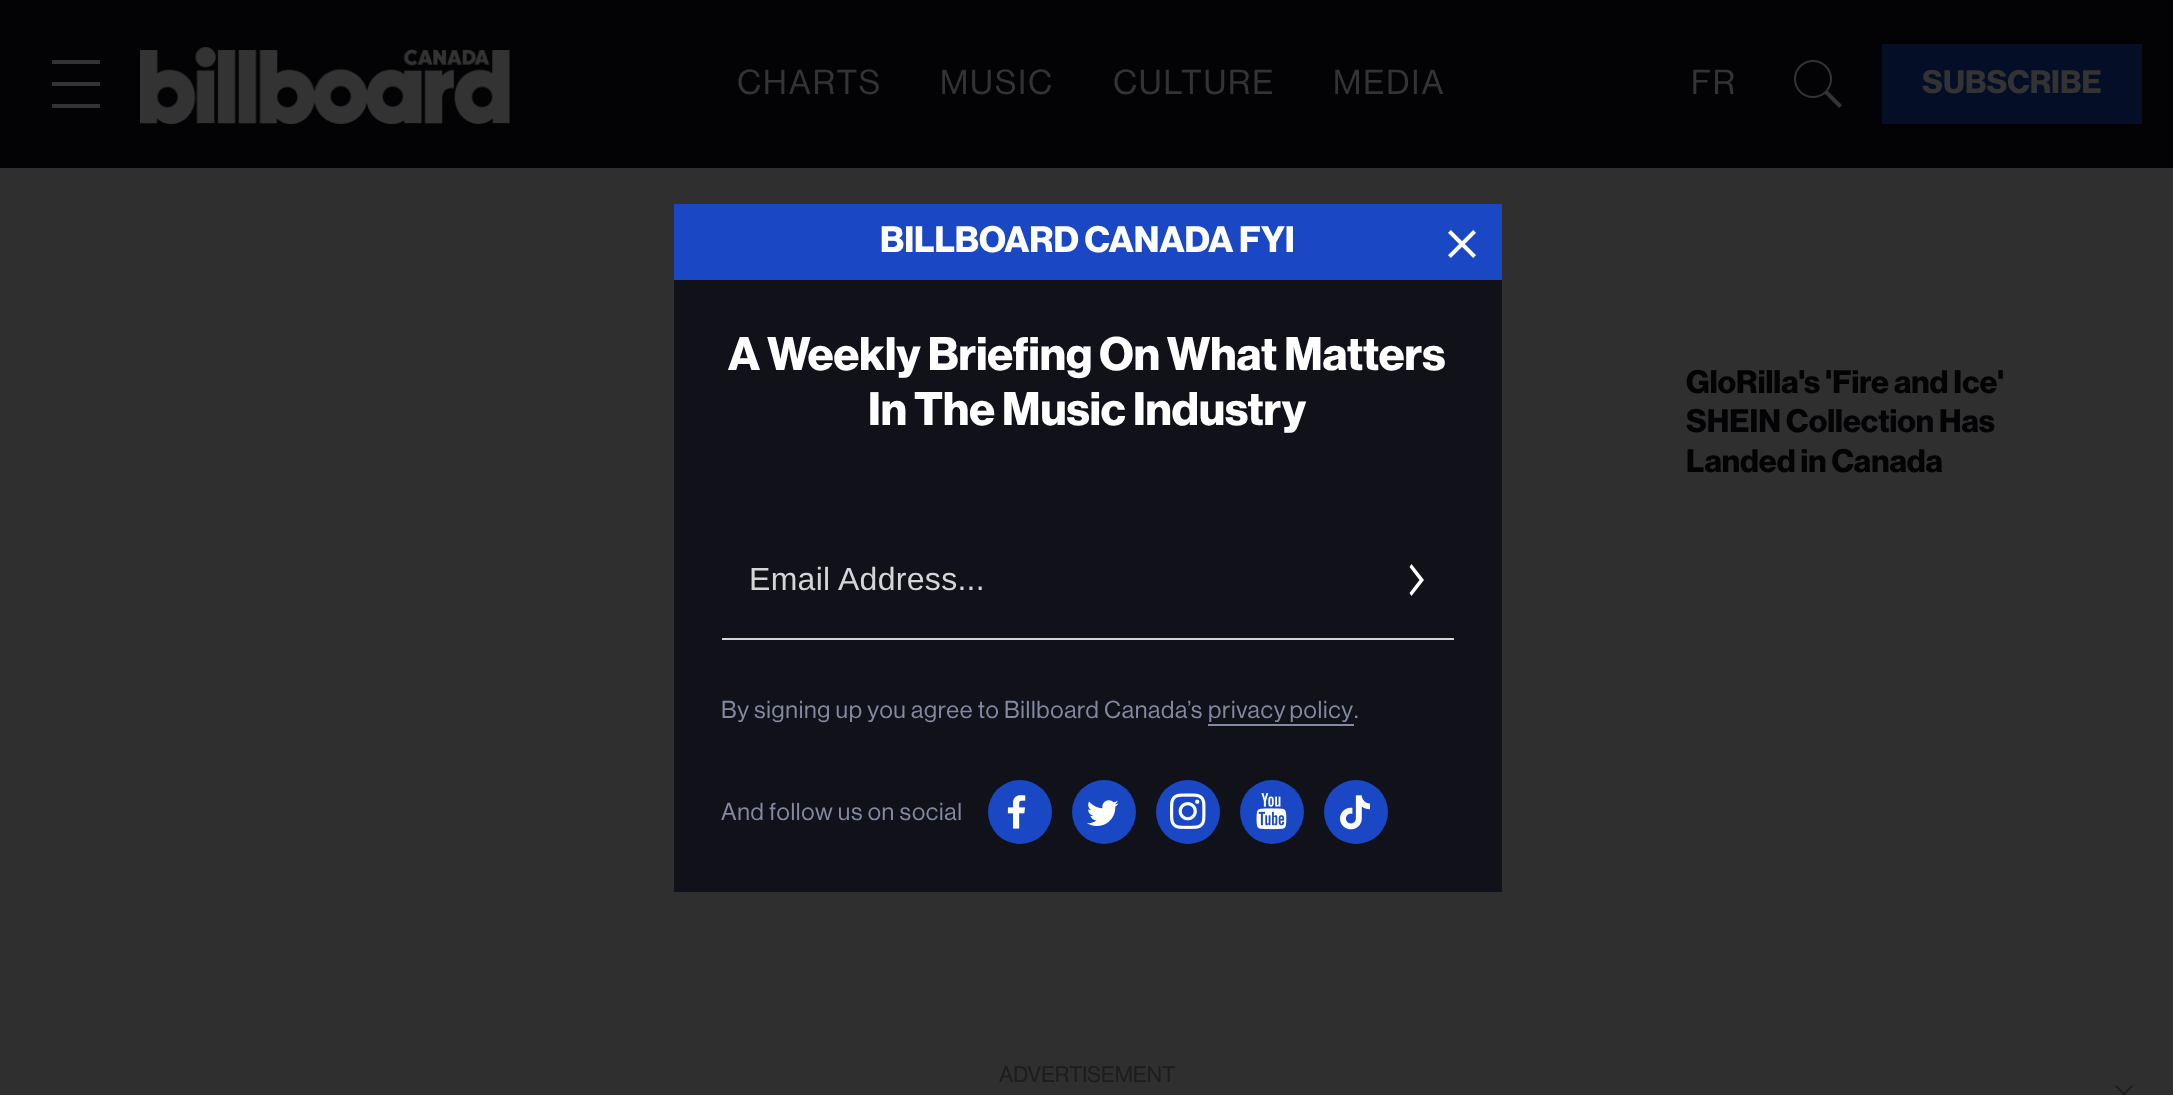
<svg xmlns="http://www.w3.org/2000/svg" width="2173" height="1095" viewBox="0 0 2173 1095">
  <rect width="100%" height="100%" fill="rgb(47,47,47)"/>
  <rect x="0" y="0" width="2173" height="168" fill="rgb(3,3,5)"/>
  <rect x="52" y="60" width="48" height="4" fill="rgb(51,51,51)"/>
  <rect x="52" y="82" width="48" height="4" fill="rgb(51,51,51)"/>
  <rect x="52" y="104" width="48" height="4" fill="rgb(51,51,51)"/>
  <image x="140" y="47" width="370" height="77" href="pic1.png"/>
  <g font-family="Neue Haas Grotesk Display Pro" font-size="34" letter-spacing="2" fill="rgb(51,51,51)">
    <text x="737" y="94">CHARTS</text>
    <text x="940" y="94">MUSIC</text>
    <text x="1113" y="94">CULTURE</text>
    <text x="1333" y="94">MEDIA</text>
    <text x="1691" y="94">FR</text>
  </g>
  <image x="1794" y="60" width="48" height="48" href="pic2.png"/>
  <rect x="1882" y="44" width="260" height="80" fill="rgb(5,14,39)"/>
  <text x="1922" y="93" font-family="Neue Haas Grotesk Display Pro" font-size="32" font-weight="bold" fill="rgb(51,51,51)">SUBSCRIBE</text>
  <rect x="674" y="280" width="828" height="612" fill="rgb(16,17,25)"/>
  <rect x="674" y="204" width="828" height="76" fill="rgb(26,72,196)"/>
  <text x="880" y="252" font-family="Neue Haas Grotesk Display Pro" font-size="36" font-weight="bold" fill="rgb(255,255,255)">BILLBOARD CANADA FYI</text>
  <image x="1448" y="230" width="28" height="28" href="pic3.png"/>
  <g font-family="Neue Haas Grotesk Display Pro" font-size="46" font-weight="bold" fill="rgb(255,255,255)">
    <text x="728" y="370">A Weekly Briefing On What Matters</text>
    <text x="868" y="425">In The Music Industry</text>
  </g>
  <rect x="722" y="638" width="732" height="2" fill="rgb(213,213,213)"/>
  <text x="749" y="590" font-family="Liberation Sans" font-size="32" letter-spacing="0.3" fill="rgb(213,213,213)">Email Address...</text>
  <path d="M1411.5 564L1409.5 567L1419.5 580L1409.5 593L1411.5 596L1424 580Z" fill="rgb(255,255,255)"/>
  <g font-family="Neue Haas Grotesk Display Pro" font-size="24" letter-spacing="0.7" fill="rgb(130,137,161)">
    <text x="721" y="718">By signing up you agree to Billboard Canada’s</text>
    <text x="1208" y="718" word-spacing="-1">privacy policy</text>
  </g>
  <rect x="1208" y="724" width="146" height="2" fill="rgb(130,137,161)"/>
  <g font-family="Neue Haas Grotesk Display Pro" font-size="24" letter-spacing="0.7" fill="rgb(130,137,161)">
    <text x="1354" y="718">.</text>
    <text x="721" y="820">And follow us on social</text>
  </g>
  <circle cx="1020" cy="812" r="32" fill="rgb(26,72,196)"/>
  <image x="1007" y="795" width="19" height="34" href="pic4.png"/>
  <circle cx="1104" cy="812" r="32" fill="rgb(26,72,196)"/>
  <image x="1087" y="800" width="32" height="26" href="pic5.png"/>
  <circle cx="1188" cy="812" r="32" fill="rgb(26,72,196)"/>
  <image x="1170" y="793" width="36" height="36" href="pic6.png"/>
  <circle cx="1272" cy="812" r="32" fill="rgb(26,72,196)"/>
  <image x="1256" y="793" width="31" height="37" href="pic7.png"/>
  <circle cx="1356" cy="812" r="32" fill="rgb(26,72,196)"/>
  <image x="1340" y="795" width="30" height="35" href="pic8.png"/>
  <g font-family="Neue Haas Grotesk Display Pro" font-size="32" font-weight="bold" fill="rgb(3,3,5)">
    <text>
      <tspan x="1686" y="393">GloRilla's 'Fire and Ice'</tspan>
      <tspan x="1686" y="432">SHEIN Collection Has</tspan>
      <tspan x="1686" y="472">Landed in Canada</tspan>
    </text>
  </g>
  <text x="999" y="1082" font-family="Neue Haas Grotesk Display Pro" font-size="22" fill="rgb(28,28,28)">ADVERTISEMENT</text>
  <path d="M2132.5 1085.5L2115.5 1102.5M2115.5 1085.5L2132.5 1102.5" fill="none" stroke="rgb(28,28,28)" stroke-width="1.7"/>
</svg>
